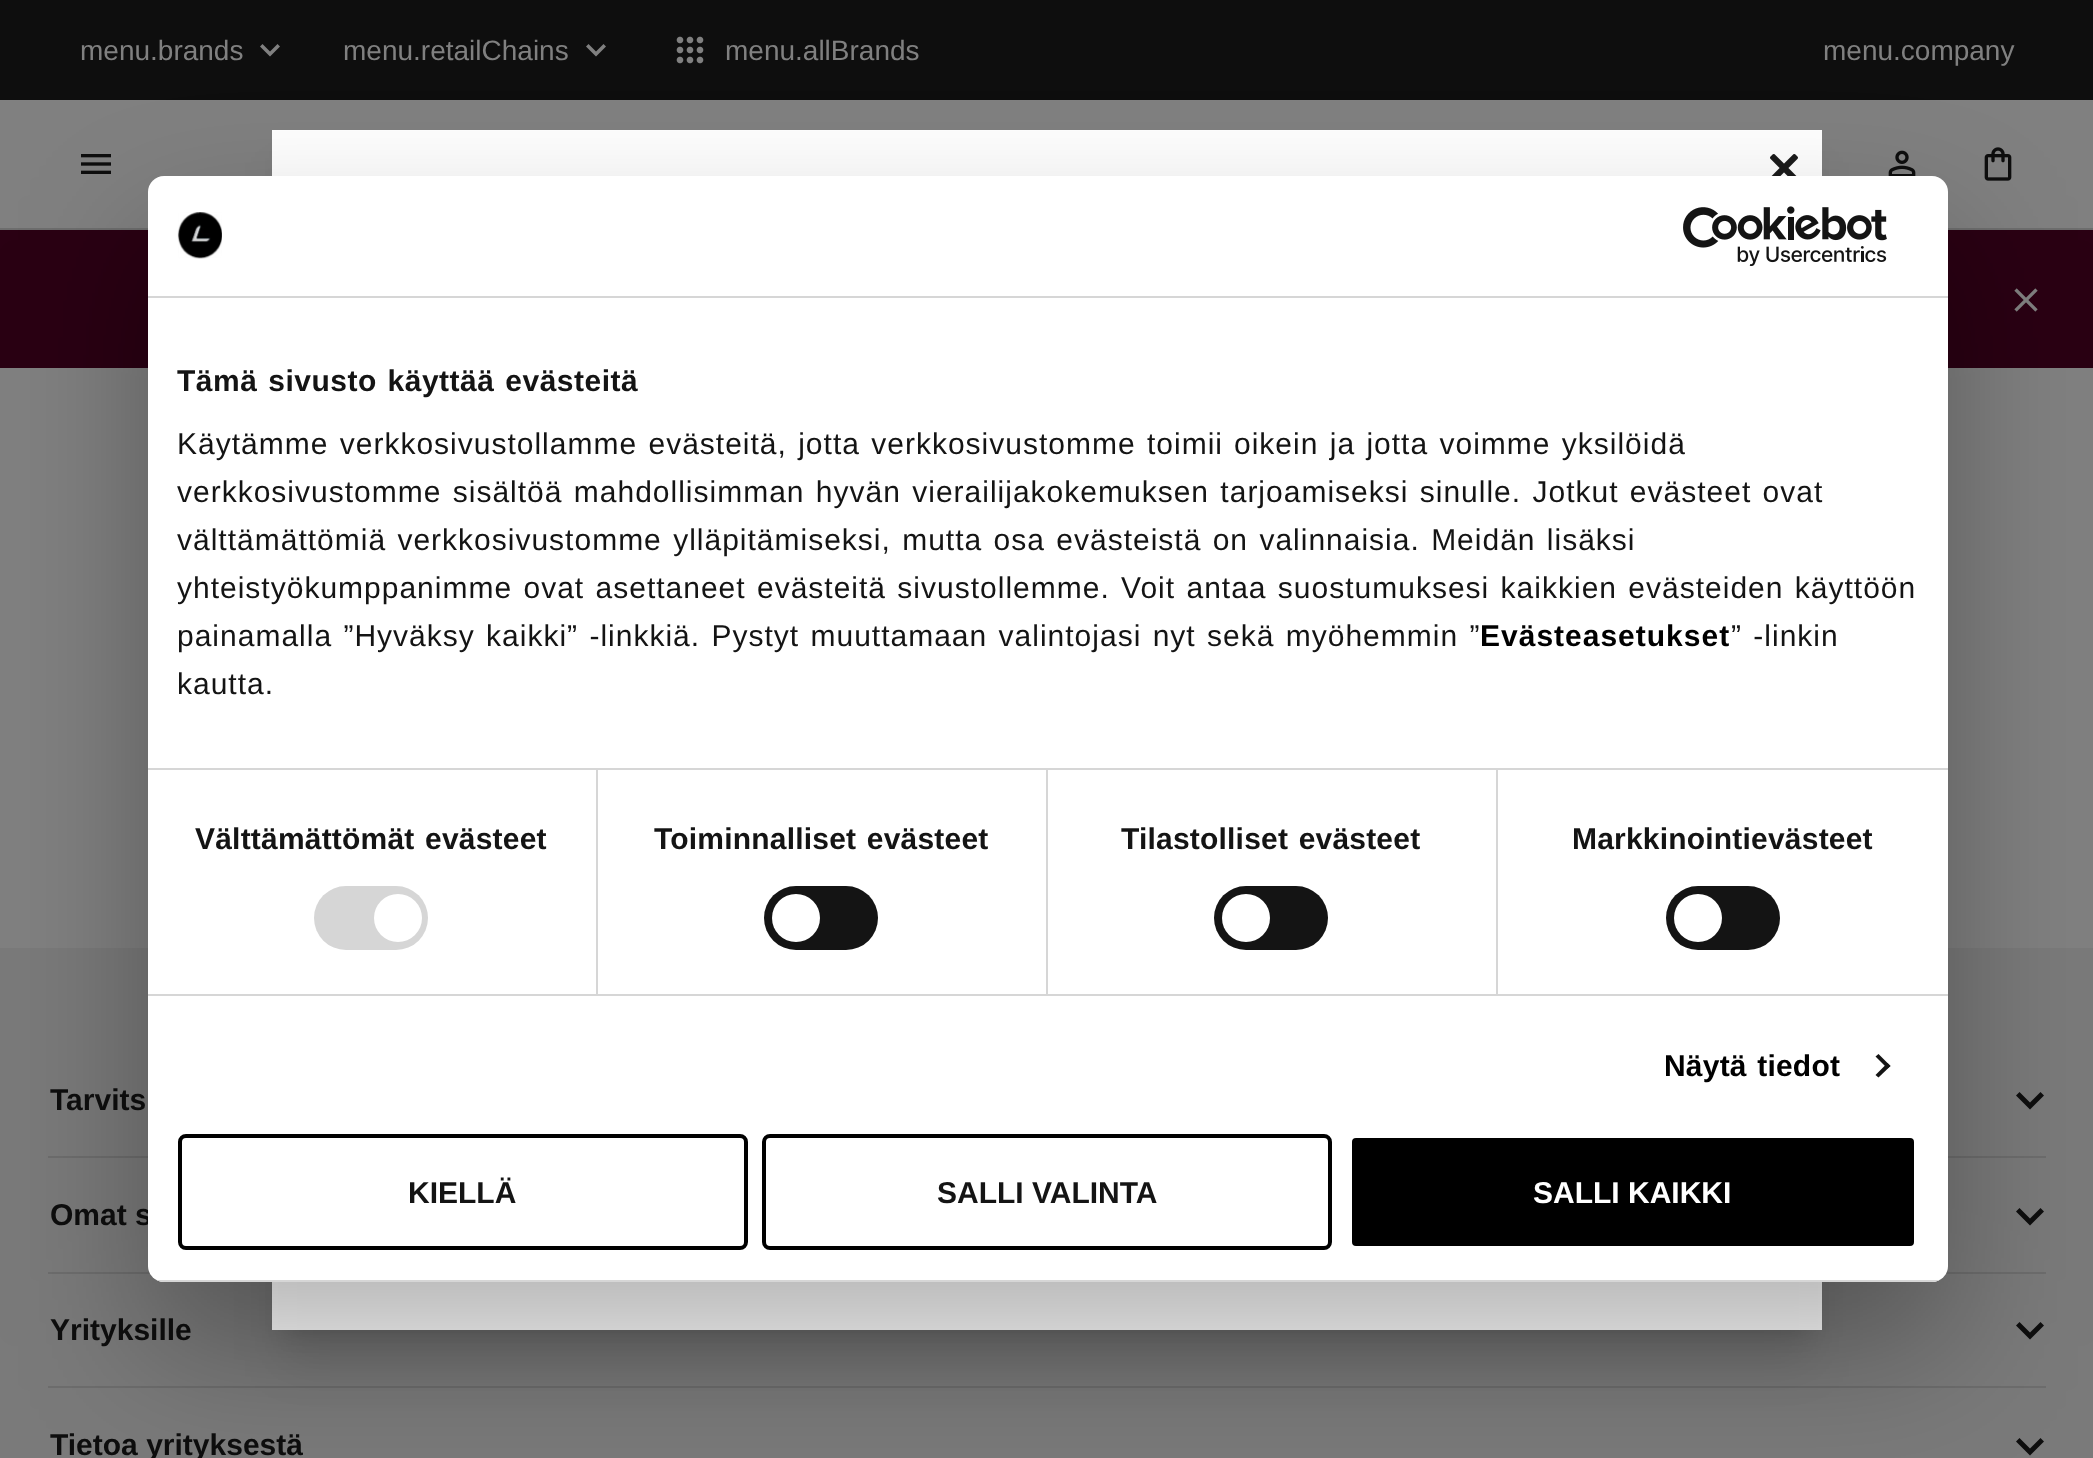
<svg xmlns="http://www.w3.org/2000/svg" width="2093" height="1458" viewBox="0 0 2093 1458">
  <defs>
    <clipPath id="clip1"><rect x="148" y="176" width="1800" height="1106" rx="16"/></clipPath>
  </defs>
  <rect width="100%" height="100%" fill="rgb(128,128,128)"/>
  <rect x="0" y="0" width="2093" height="100" fill="rgb(14,14,14)"/>
  <text x="80" y="60" font-family="Liberation Sans" font-size="28" fill="rgb(128,128,128)">menu.brands</text>
  <path d="M277.5 44L270 51.5L262.5 44L260 46.5L270 56.5L280 46.5Z" fill="rgb(128,128,128)"/>
  <text x="343" y="60" font-family="Liberation Sans" font-size="28" fill="rgb(128,128,128)">menu.retailChains</text>
  <path d="M603.5 44L596 51.5L588.5 44L586 46.5L596 56.5L606 46.5Z" fill="rgb(128,128,128)"/>
  <image x="676" y="36" width="28" height="28" href="pic1.png"/>
  <g font-family="Liberation Sans" font-size="28" fill="rgb(128,128,128)">
    <text x="725" y="60">menu.allBrands</text>
    <text x="1823" y="60">menu.company</text>
  </g>
  <rect x="0" y="228" width="2093" height="2" fill="rgb(109,109,109)"/>
  <image x="81" y="154" width="30" height="20" href="pic2.png"/>
  <image x="1888" y="150" width="28" height="26" href="pic3.png"/>
  <image x="1984" y="147" width="28" height="34" href="pic4.png"/>
  <rect x="0" y="230" width="2093" height="138" fill="rgb(42,0,19)"/>
  <image x="2014" y="288" width="24" height="24" href="pic5.png"/>
  <rect x="0" y="948" width="2093" height="510" fill="rgb(122,122,122)"/>
  <rect x="48" y="1156" width="1998" height="2" fill="rgb(109,109,109)"/>
  <text x="50" y="1110" font-family="Liberation Sans" font-size="30" font-weight="bold" fill="rgb(14,14,14)">Tarvits</text>
  <path d="M2040.5 1092L2030 1102.5L2019.5 1092L2016 1095.5L2030 1109.5L2044 1095.5Z" fill="rgb(14,14,14)"/>
  <rect x="48" y="1272" width="1998" height="2" fill="rgb(109,109,109)"/>
  <text x="50" y="1225" font-family="Liberation Sans" font-size="30" font-weight="bold" fill="rgb(14,14,14)">Omat s</text>
  <path d="M2040.5 1208L2030 1218.5L2019.5 1208L2016 1211.5L2030 1225.5L2044 1211.5Z" fill="rgb(14,14,14)"/>
  <rect x="48" y="1386" width="1998" height="2" fill="rgb(109,109,109)"/>
  <text x="50" y="1340" font-family="Liberation Sans" font-size="30" font-weight="bold" fill="rgb(14,14,14)">Yrityksille</text>
  <path d="M2040.5 1322L2030 1332.5L2019.5 1322L2016 1325.5L2030 1339.5L2044 1325.5Z" fill="rgb(14,14,14)"/>
  <text x="50" y="1455" font-family="Liberation Sans" font-size="30" font-weight="bold" fill="rgb(14,14,14)">Tietoa yrityksestä</text>
  <path d="M2040.5 1438L2030 1448.5L2019.5 1438L2016 1441.5L2030 1455.5L2044 1441.5Z" fill="rgb(14,14,14)"/>
  <rect x="284" y="158" width="1526" height="1176" fill="rgba(0,0,0,0.1)" filter="blur(10px)"/>
  <rect x="282" y="180" width="1530" height="1180" fill="rgba(0,0,0,0.1)" filter="blur(25px)"/>
  <rect x="272" y="130" width="1550" height="1200" fill="rgb(255,255,255)"/>
  <image x="1770" y="154" width="28" height="22" href="pic6.png"/>
  <rect x="148" y="240" width="1800" height="1106" rx="16" fill="rgba(0,0,0,0.3)" filter="blur(68px)"/>
  <rect x="148" y="176" width="1800" height="1106" rx="16" fill="rgb(255,255,255)"/>
  <rect x="148" y="296" width="1800" height="2" fill="rgb(214,214,214)"/>
  <image x="177" y="212" width="45" height="47" href="pic7.png"/>
  <image x="1683" y="206" width="204" height="60" href="pic8.png"/>
  <rect x="148" y="768" width="1800" height="2" fill="rgb(214,214,214)"/>
  <text x="177" y="391" word-spacing="2" font-family="Liberation Sans" font-size="30" font-weight="bold" letter-spacing="0.5" fill="rgb(20,20,20)">Tämä sivusto käyttää evästeitä</text>
  <g font-family="Liberation Sans" font-size="30" letter-spacing="1" fill="rgb(20,20,20)">
    <text x="177" y="454" word-spacing="2">Käytämme verkkosivustollamme evästeitä, jotta verkkosivustomme toimii</text>
    <text x="1234" y="454" word-spacing="2">oikein ja jotta voimme yksilöidä</text>
    <text>
      <tspan x="177" y="502" word-spacing="2">verkkosivustomme sisältöä mahdollisimman hyvän vierailijakokemuksen tarjoamiseksi sinulle. Jotkut evästeet ovat</tspan>
      <tspan x="177" y="550" word-spacing="2">välttämättömiä verkkosivustomme ylläpitämiseksi, mutta osa evästeistä on valinnaisia. Meidän lisäksi</tspan>
      <tspan x="177" y="598" word-spacing="2">yhteistyökumppanimme ovat asettaneet evästeitä sivustollemme. Voit antaa suostumuksesi kaikkien evästeiden käyttöön</tspan>
      <tspan x="177" y="646" word-spacing="2">painamalla ”Hyväksy kaikki” -linkkiä. Pystyt muuttamaan valintojasi nyt sekä myöhemmin ”</tspan>
    </text>
  </g>
  <text x="1480" y="646" font-family="Liberation Sans" font-size="30" font-weight="bold" letter-spacing="1" fill="rgb(0,0,0)">Evästeasetukset</text>
  <g font-family="Liberation Sans" font-size="30" letter-spacing="1" fill="rgb(20,20,20)">
    <text x="1731" y="646" word-spacing="2">” -linkin</text>
    <text x="177" y="694">kautta.</text>
  </g>
  <rect x="148" y="994" width="1800" height="2" fill="rgb(214,214,214)"/>
  <rect x="596" y="770" width="2" height="224" fill="rgb(214,214,214)"/>
  <text x="195" y="849" word-spacing="2" font-family="Liberation Sans" font-size="30" font-weight="bold" letter-spacing="0.2" fill="rgb(20,20,20)">Välttämättömät evästeet</text>
  <rect x="314" y="886" width="114" height="64" rx="32" fill="rgb(214,214,214)"/>
  <circle cx="398" cy="918" r="24" fill="rgb(255,255,255)"/>
  <rect x="1046" y="770" width="2" height="224" fill="rgb(214,214,214)"/>
  <text x="654" y="849" word-spacing="2" font-family="Liberation Sans" font-size="30" font-weight="bold" letter-spacing="0.2" fill="rgb(20,20,20)">Toiminnalliset evästeet</text>
  <rect x="764" y="886" width="114" height="64" rx="32" fill="rgb(20,20,20)"/>
  <circle cx="796" cy="918" r="24" fill="rgb(255,255,255)"/>
  <rect x="1496" y="770" width="2" height="224" fill="rgb(214,214,214)"/>
  <text x="1121" y="849" word-spacing="2" font-family="Liberation Sans" font-size="30" font-weight="bold" letter-spacing="0.2" fill="rgb(20,20,20)">Tilastolliset evästeet</text>
  <rect x="1214" y="886" width="114" height="64" rx="32" fill="rgb(20,20,20)"/>
  <circle cx="1246" cy="918" r="24" fill="rgb(255,255,255)"/>
  <text x="1572" y="849" font-family="Liberation Sans" font-size="30" font-weight="bold" letter-spacing="0.2" fill="rgb(20,20,20)">Markkinointievästeet</text>
  <rect x="1666" y="886" width="114" height="64" rx="32" fill="rgb(20,20,20)"/>
  <circle cx="1698" cy="918" r="24" fill="rgb(255,255,255)"/>
  <text x="1664" y="1076" word-spacing="2" font-family="Liberation Sans" font-size="30" font-weight="bold" letter-spacing="0.2" fill="rgb(0,0,0)">Näytä tiedot</text>
  <path d="M1878.5 1054L1890.5 1066L1887.5 1068.5L1875.5 1056.5Z" fill="rgb(20,20,20)"/>
  <path d="M1887.5 1063L1890.5 1066L1878.5 1077.5L1875.5 1075Z" fill="rgb(20,20,20)"/>
  <g clip-path="url(#clip1)">
    <rect x="148" y="1280" width="1800" height="2" fill="rgb(214,214,214)"/>
  </g>
  <rect x="180" y="1136" width="566" height="112" rx="6" fill="none" stroke="rgb(0,0,0)" stroke-width="4"/>
  <text x="408" y="1203" font-family="Liberation Sans" font-size="30" font-weight="bold" fill="rgb(20,20,20)">KIELLÄ</text>
  <rect x="764" y="1136" width="566" height="112" rx="6" fill="none" stroke="rgb(0,0,0)" stroke-width="4"/>
  <text x="937" y="1203" font-family="Liberation Sans" font-size="30" font-weight="bold" fill="rgb(20,20,20)">SALLI VALINTA</text>
  <rect x="1350" y="1136" width="566" height="112" rx="6" fill="rgb(0,0,0)" stroke="rgb(255,255,255)" stroke-width="4"/>
  <text x="1533" y="1203" font-family="Liberation Sans" font-size="30" font-weight="bold" fill="rgb(255,255,255)">SALLI KAIKKI</text>
</svg>
